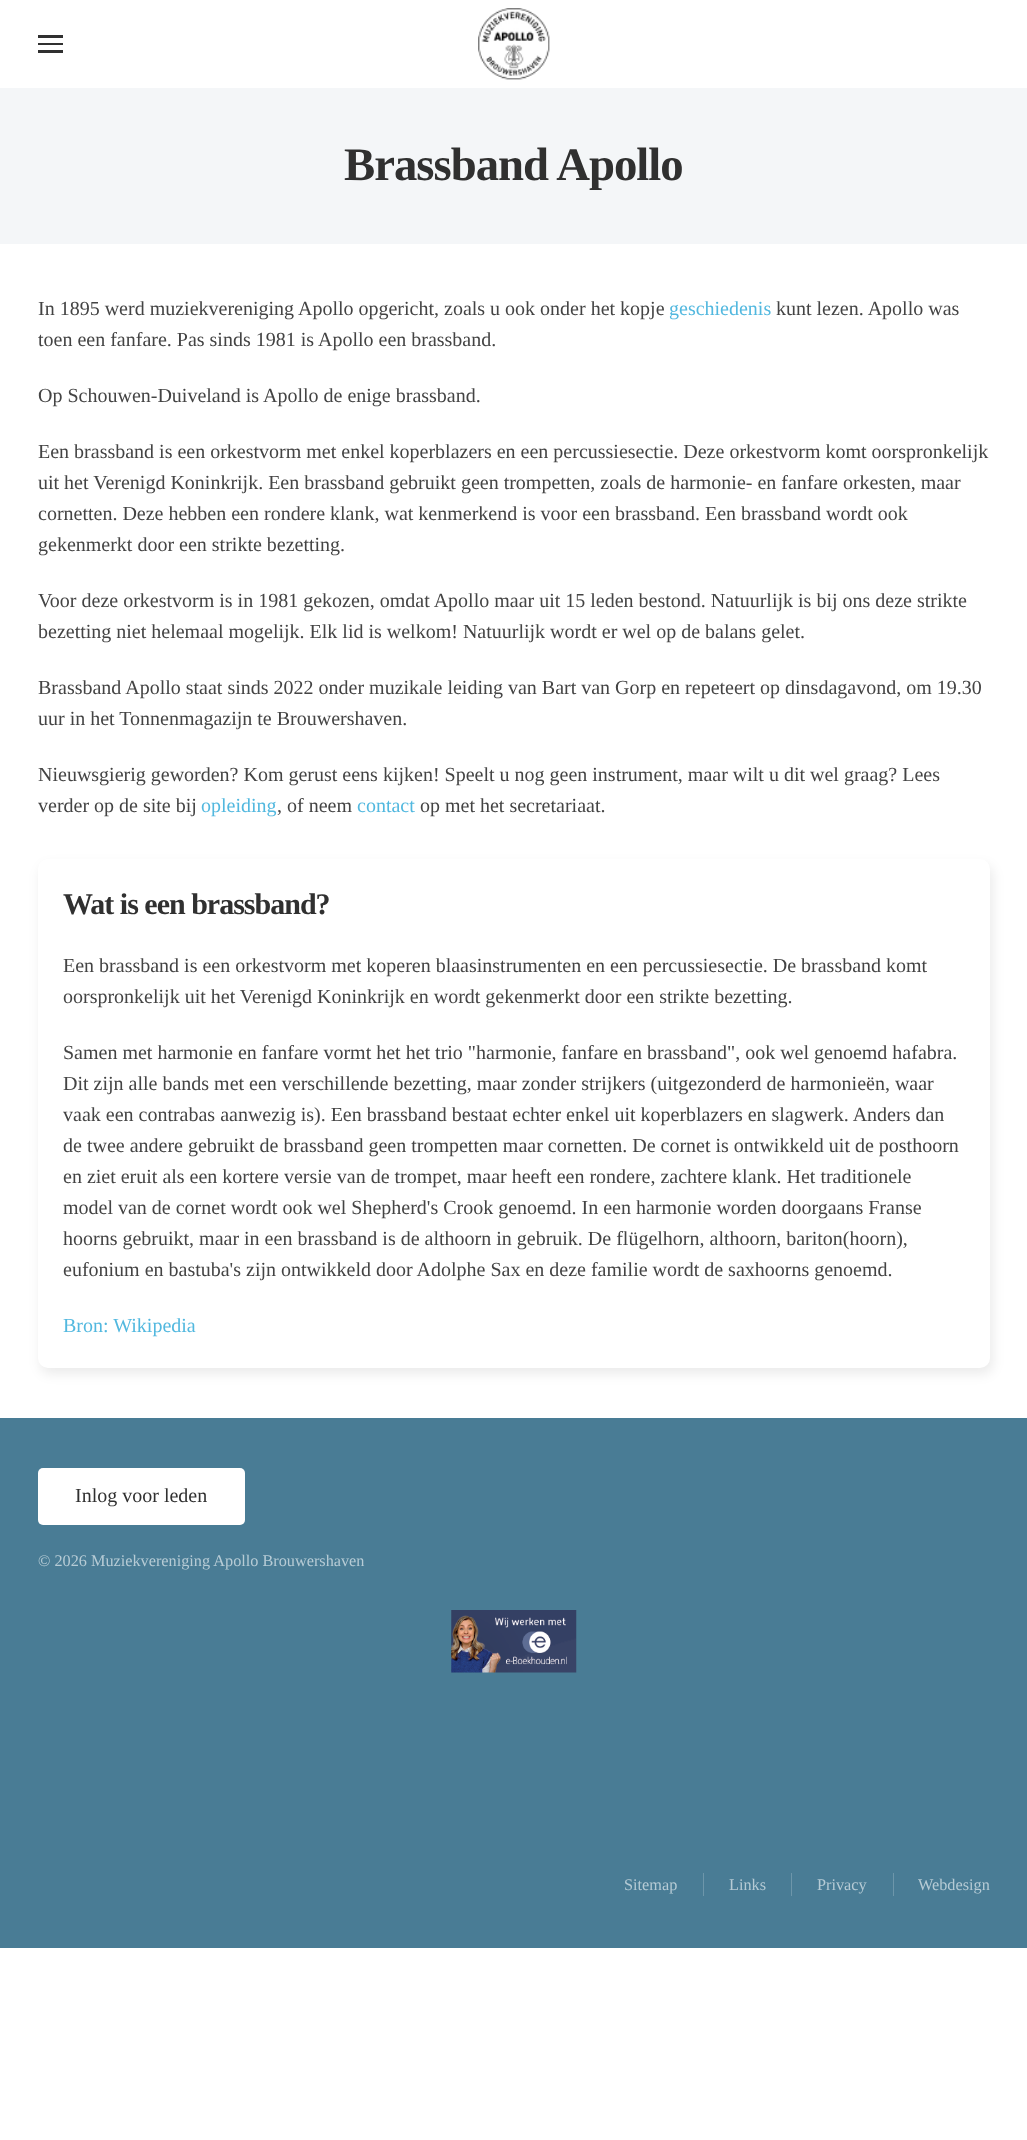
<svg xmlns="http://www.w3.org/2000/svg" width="1027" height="2140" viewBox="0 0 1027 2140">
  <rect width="100%" height="100%" fill="rgb(255,255,255)"/>
  <rect x="38" y="35" width="25" height="3" fill="rgb(48,48,48)"/>
  <rect x="38" y="43" width="25" height="2" fill="rgb(48,48,48)"/>
  <rect x="38" y="50" width="25" height="3" fill="rgb(48,48,48)"/>
  <image x="478" y="8" width="72" height="72" href="pic1.png"/>
  <rect x="0" y="88" width="1027" height="156" fill="rgb(244,246,248)"/>
  <text x="344" y="180" font-family="Liberation Serif" font-size="46.75" font-weight="bold" letter-spacing="-1" fill="rgb(48,48,48)">Brassband Apollo</text>
  <text x="38" y="315" font-family="Liberation Serif" font-size="20" fill="rgb(68,68,68)">In 1895 werd muziekvereniging Apollo opgericht, zoals u ook onder het kopje</text>
  <text x="669" y="315" font-family="Liberation Serif" font-size="20" fill="rgb(82,184,223)">geschiedenis</text>
  <g font-family="Liberation Serif" font-size="20" fill="rgb(68,68,68)">
    <text x="776" y="315">kunt lezen. Apollo was</text>
    <text x="38" y="346">toen een fanfare. Pas sinds 1981 is Apollo een brassband.</text>
    <text x="38" y="402">Op Schouwen-Duiveland is Apollo de enige brassband.</text>
    <text>
      <tspan x="38" y="458">Een brassband is een orkestvorm met enkel koperblazers en een percussiesectie. Deze orkestvorm komt oorspronkelijk</tspan>
      <tspan x="38" y="489">uit het Verenigd Koninkrijk. Een brassband gebruikt geen trompetten, zoals de harmonie- en fanfare orkesten, maar</tspan>
      <tspan x="38" y="520">cornetten. Deze hebben een rondere klank, wat kenmerkend is voor een brassband. Een brassband wordt ook</tspan>
      <tspan x="38" y="551">gekenmerkt door een strikte bezetting.</tspan>
    </text>
    <text>
      <tspan x="38" y="607">Voor deze orkestvorm is in 1981 gekozen, omdat Apollo maar uit 15 leden bestond. Natuurlijk is bij ons deze strikte</tspan>
      <tspan x="38" y="638">bezetting niet helemaal mogelijk. Elk lid is welkom! Natuurlijk wordt er wel op de balans gelet.</tspan>
    </text>
    <text>
      <tspan x="38" y="694">Brassband Apollo staat sinds 2022 onder muzikale leiding van Bart van Gorp en repeteert op dinsdagavond, om 19.30</tspan>
      <tspan x="38" y="725">uur in het Tonnenmagazijn te Brouwershaven.</tspan>
    </text>
    <text>
      <tspan x="38" y="781">Nieuwsgierig geworden? Kom gerust eens kijken! Speelt u nog geen instrument, maar wilt u dit wel graag? Lees</tspan>
      <tspan x="38" y="812">verder op de site bij</tspan>
    </text>
  </g>
  <text x="201" y="812" font-family="Liberation Serif" font-size="20" fill="rgb(82,184,223)">opleiding</text>
  <text x="277" y="812" font-family="Liberation Serif" font-size="20" fill="rgb(68,68,68)">, of neem</text>
  <text x="357" y="812" font-family="Liberation Serif" font-size="20" fill="rgb(82,184,223)">contact</text>
  <text x="420" y="812" font-family="Liberation Serif" font-size="20" fill="rgb(68,68,68)">op met het secretariaat.</text>
  <rect x="40" y="865" width="953" height="509" rx="10" fill="rgba(0,0,0,0.08)" filter="blur(6px)"/>
  <rect x="38" y="859" width="952" height="509" rx="10" fill="rgb(255,255,255)"/>
  <text x="63" y="914" font-family="Liberation Serif" font-size="30" font-weight="bold" letter-spacing="-1" fill="rgb(48,48,48)">Wat is een brassband?</text>
  <g font-family="Liberation Serif" font-size="20" fill="rgb(68,68,68)">
    <text>
      <tspan x="63" y="972">Een brassband is een orkestvorm met koperen blaasinstrumenten en een percussiesectie. De brassband komt</tspan>
      <tspan x="63" y="1003">oorspronkelijk uit het Verenigd Koninkrijk en wordt gekenmerkt door een strikte bezetting.</tspan>
    </text>
    <text>
      <tspan x="63" y="1059">Samen met harmonie en fanfare vormt het het trio "harmonie, fanfare en brassband", ook wel genoemd hafabra.</tspan>
      <tspan x="63" y="1090">Dit zijn alle bands met een verschillende bezetting, maar zonder strijkers (uitgezonderd de harmonieën, waar</tspan>
      <tspan x="63" y="1121">vaak een contrabas aanwezig is). Een brassband bestaat echter enkel uit koperblazers en slagwerk. Anders dan</tspan>
      <tspan x="63" y="1152">de twee andere gebruikt de brassband geen trompetten maar cornetten. De cornet is ontwikkeld uit de posthoorn</tspan>
      <tspan x="63" y="1183">en ziet eruit als een kortere versie van de trompet, maar heeft een rondere, zachtere klank. Het traditionele</tspan>
      <tspan x="63" y="1214">model van de cornet wordt ook wel Shepherd's Crook genoemd. In een harmonie worden doorgaans Franse</tspan>
      <tspan x="63" y="1245">hoorns gebruikt, maar in een brassband is de althoorn in gebruik. De flügelhorn, althoorn, bariton(hoorn),</tspan>
      <tspan x="63" y="1276">eufonium en bastuba's zijn ontwikkeld door Adolphe Sax en deze familie wordt de saxhoorns genoemd.</tspan>
    </text>
  </g>
  <text x="63" y="1332" font-family="Liberation Serif" font-size="20" fill="rgb(82,184,223)">Bron: Wikipedia</text>
  <rect x="0" y="1418" width="1027" height="530" fill="rgb(73,124,149)"/>
  <rect x="38" y="1468" width="207" height="57" rx="5" fill="rgb(255,255,255)"/>
  <text x="75" y="1502" font-family="Liberation Serif" font-size="20" fill="rgb(48,48,48)">Inlog voor leden</text>
  <text x="38" y="1566" font-family="Liberation Serif" font-size="16.25" fill="rgb(182,203,213)">© 2026 Muziekvereniging Apollo Brouwershaven</text>
  <image x="451" y="1610" width="126" height="63" href="pic2.png"/>
  <text x="624" y="1890" font-family="Liberation Serif" font-size="16.25" fill="rgb(182,203,213)">Sitemap</text>
  <rect x="703" y="1873" width="1" height="23" fill="rgb(109,150,170)"/>
  <text x="729" y="1890" font-family="Liberation Serif" font-size="16.25" fill="rgb(182,203,213)">Links</text>
  <rect x="791" y="1873" width="1" height="23" fill="rgb(109,150,170)"/>
  <text x="817" y="1890" font-family="Liberation Serif" font-size="16.25" fill="rgb(182,203,213)">Privacy</text>
  <rect x="893" y="1873" width="1" height="23" fill="rgb(109,150,170)"/>
  <text x="918" y="1890" font-family="Liberation Serif" font-size="16.25" fill="rgb(182,203,213)">Webdesign</text>
</svg>
